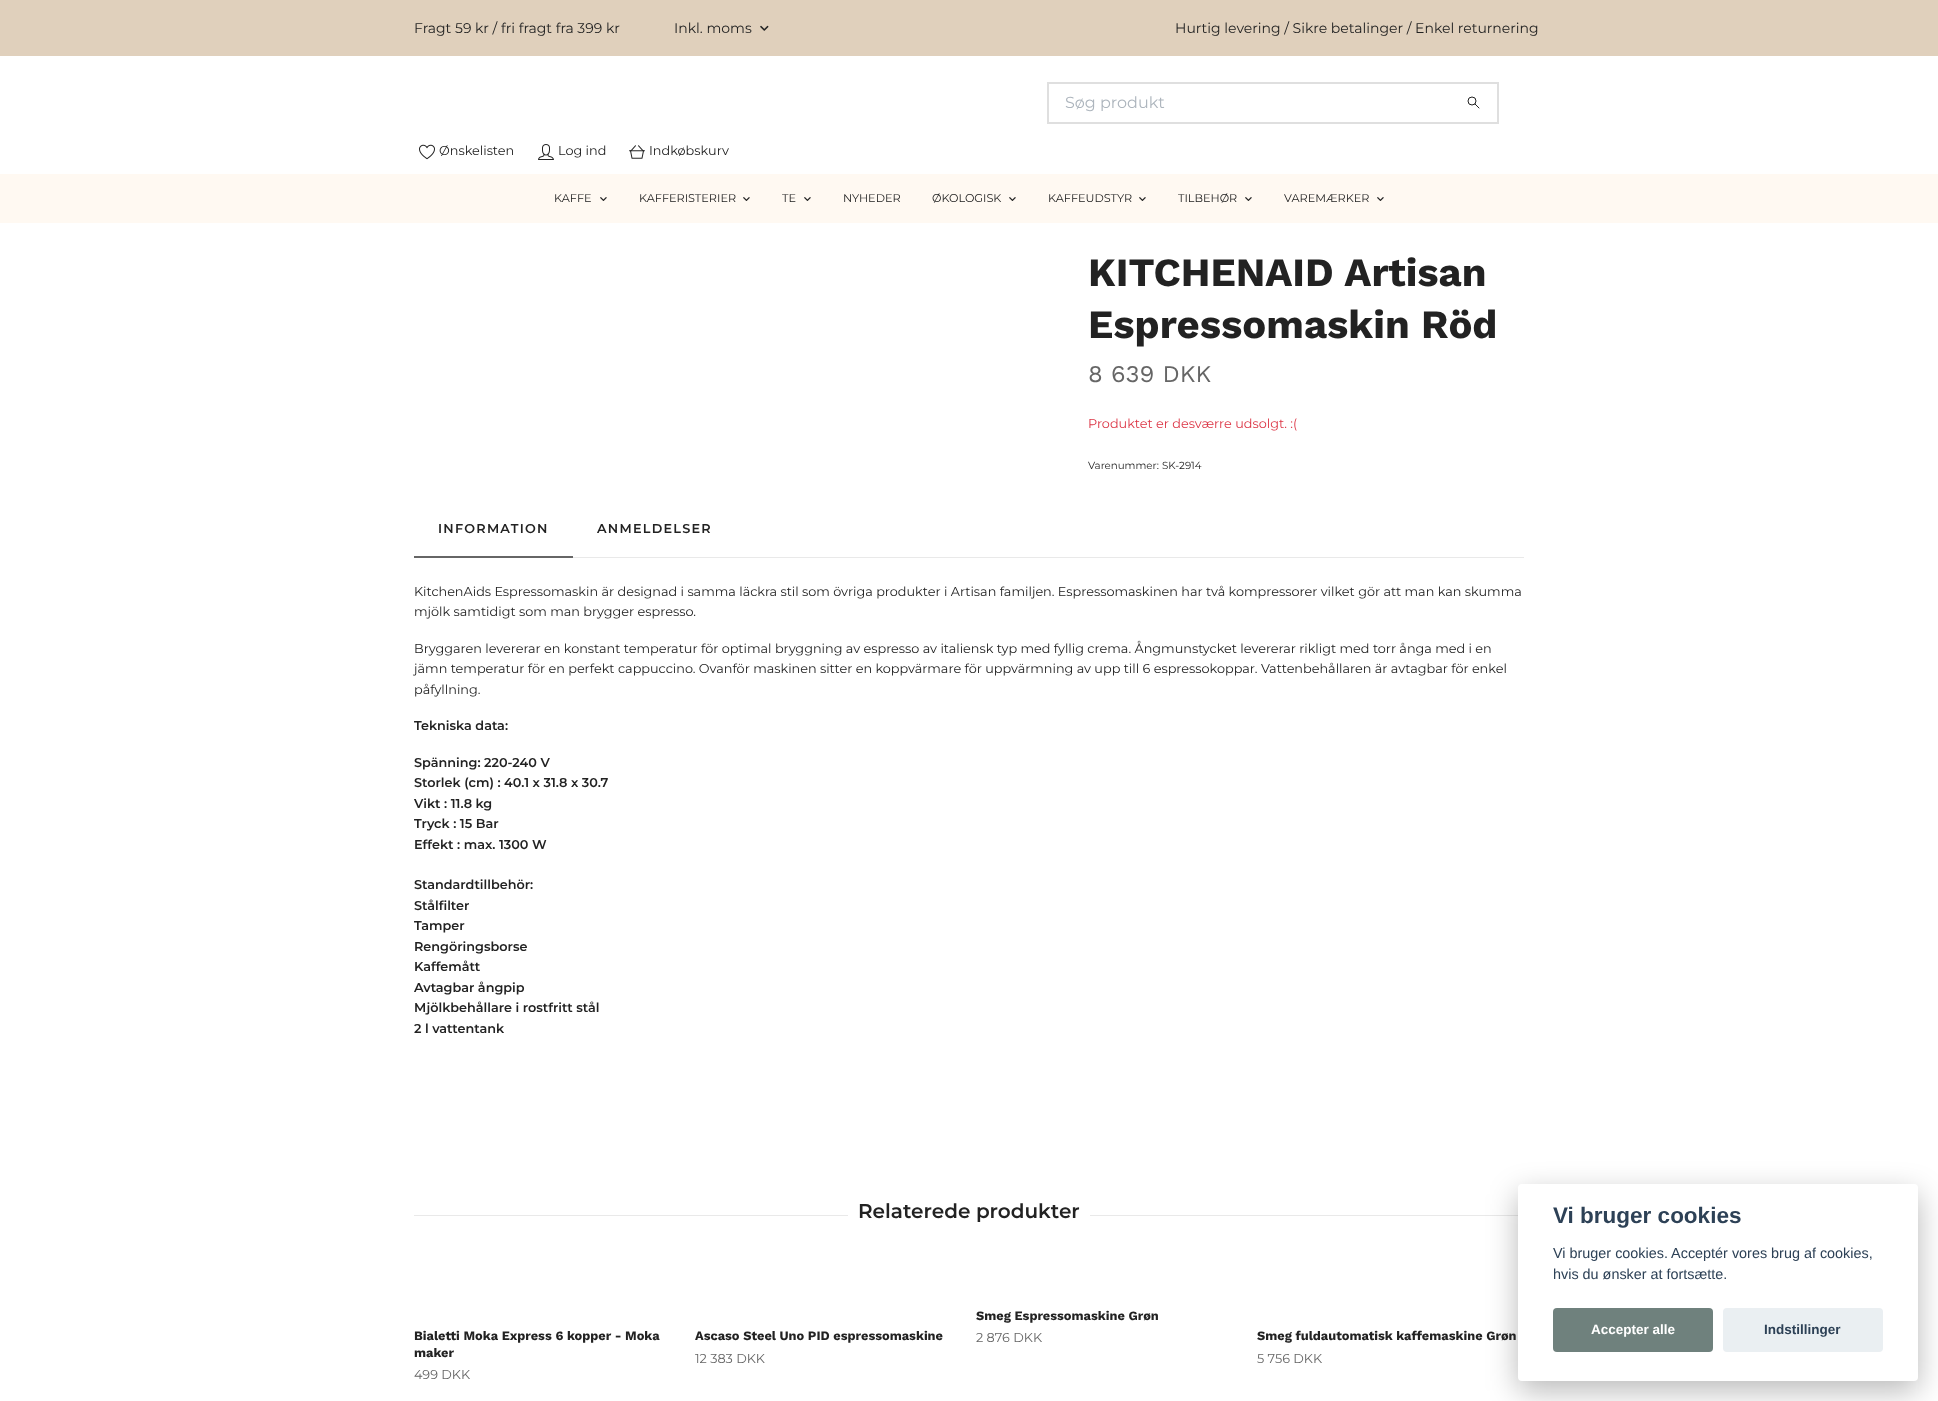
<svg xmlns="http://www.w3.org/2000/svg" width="1938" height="1401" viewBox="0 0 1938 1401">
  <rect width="100%" height="100%" fill="rgb(255,255,255)"/>
  <rect x="0" y="0" width="1938" height="56" fill="rgb(224,208,188)"/>
  <g font-family="Montserrat" font-size="14" fill="rgb(34,34,34)">
    <text x="414" y="33">Fragt 59 kr / fri fragt fra 399 kr</text>
    <text x="674" y="33">Inkl. moms</text>
  </g>
  <image x="760" y="25" width="9" height="6" href="pic1.png"/>
  <text x="1175" y="33" font-family="Montserrat" font-size="14" fill="rgb(34,34,34)">Hurtig levering / Sikre betalinger / Enkel returnering</text>
  <rect x="1048" y="83" width="450" height="40" fill="none" stroke="rgb(223,223,223)" stroke-width="2"/>
  <text x="1065" y="108" font-family="Montserrat" font-size="16" fill="rgb(173,181,189)">Søg produkt</text>
  <path d="M1475 104L1479 108" fill="none" stroke="rgb(34,34,34)" stroke-linecap="round" stroke-linejoin="round"/>
  <circle cx="1472" cy="101" r="4" fill="none" stroke="rgb(34,34,34)"/>
  <image x="419" y="144" width="16" height="16" href="pic2.png"/>
  <text x="439" y="155" font-family="Montserrat" font-size="12.8" fill="rgb(34,34,34)">Ønskelisten</text>
  <image x="538" y="144" width="16" height="16" href="pic3.png"/>
  <text x="558" y="155" font-family="Montserrat" font-size="12.8" fill="rgb(34,34,34)">Log ind</text>
  <image x="629" y="145" width="16" height="14" href="pic4.png"/>
  <text x="649" y="155" font-family="Montserrat" font-size="12.8" fill="rgb(34,34,34)">Indkøbskurv</text>
  <rect x="0" y="174" width="1938" height="49" fill="rgb(255,249,242)"/>
  <text x="554" y="202" font-family="Montserrat" font-size="11.25" fill="rgb(34,34,34)">KAFFE</text>
  <image x="600" y="197" width="7" height="4" href="pic5.png"/>
  <text x="639" y="202" font-family="Montserrat" font-size="11.25" fill="rgb(34,34,34)">KAFFERISTERIER</text>
  <image x="743" y="197" width="7" height="4" href="pic5.png"/>
  <text x="782" y="202" font-family="Montserrat" font-size="11.25" fill="rgb(34,34,34)">TE</text>
  <image x="804" y="197" width="7" height="4" href="pic5.png"/>
  <g font-family="Montserrat" font-size="11.25" fill="rgb(34,34,34)">
    <text x="843" y="202">NYHEDER</text>
    <text x="932" y="202">ØKOLOGISK</text>
  </g>
  <image x="1009" y="197" width="7" height="4" href="pic5.png"/>
  <text x="1048" y="202" font-family="Montserrat" font-size="11.25" fill="rgb(34,34,34)">KAFFEUDSTYR</text>
  <image x="1139" y="197" width="7" height="4" href="pic5.png"/>
  <text x="1178" y="202" font-family="Montserrat" font-size="11.25" fill="rgb(34,34,34)">TILBEHØR</text>
  <image x="1245" y="197" width="7" height="4" href="pic5.png"/>
  <text x="1284" y="202" font-family="Montserrat" font-size="11.25" fill="rgb(34,34,34)">VAREMÆRKER</text>
  <image x="1377" y="197" width="7" height="4" href="pic5.png"/>
  <g font-family="Work Sans" font-size="40" font-weight="bold" fill="rgb(34,34,34)">
    <text>
      <tspan x="1088" y="286">KITCHENAID Artisan</tspan>
      <tspan x="1088" y="338">Espressomaskin Röd</tspan>
    </text>
  </g>
  <text x="1088" y="382" font-family="Work Sans" font-size="24" fill="rgb(102,102,102)">8 639 DKK</text>
  <text x="1088" y="428" font-family="Montserrat" font-size="12.8" fill="rgb(220,53,69)">Produktet er desværre udsolgt. :(</text>
  <g font-family="Montserrat" font-size="10.25" fill="rgb(34,34,34)">
    <text x="1088" y="469">Varenummer:</text>
    <text x="1162" y="469">SK-2914</text>
  </g>
  <rect x="573" y="557" width="951" height="1" fill="rgb(233,233,233)"/>
  <rect x="414" y="556" width="159" height="2" fill="rgb(102,102,102)"/>
  <g font-family="Montserrat" font-size="12.8" font-weight="600" letter-spacing="1.25" fill="rgb(34,34,34)">
    <text x="438" y="533">INFORMATION</text>
    <text x="597" y="533">ANMELDELSER</text>
  </g>
  <g font-family="Montserrat" font-size="12.8" fill="rgb(34,34,34)">
    <text>
      <tspan x="414" y="596">KitchenAids Espressomaskin är designad i samma läckra stil som övriga produkter i Artisan familjen. Espressomaskinen har två kompressorer vilket gör att man kan skumma</tspan>
      <tspan x="414" y="616">mjölk samtidigt som man brygger espresso.</tspan>
    </text>
    <text>
      <tspan x="414" y="653">Bryggaren levererar en konstant temperatur för optimal bryggning av espresso av italiensk typ med fyllig crema. Ångmunstycket levererar rikligt med torr ånga med i en</tspan>
      <tspan x="414" y="673">jämn temperatur för en perfekt cappuccino. Ovanför maskinen sitter en koppvärmare för uppvärmning av upp till 6 espressokoppar. Vattenbehållaren är avtagbar för enkel</tspan>
      <tspan x="414" y="694">påfyllning.</tspan>
    </text>
  </g>
  <g font-family="Montserrat" font-size="12.8" font-weight="600" fill="rgb(34,34,34)">
    <text x="414" y="730">Tekniska data:</text>
    <text>
      <tspan x="414" y="767">Spänning: 220-240 V</tspan>
      <tspan x="414" y="787">Storlek (cm) : 40.1 x 31.8 x 30.7</tspan>
      <tspan x="414" y="808">Vikt : 11.8 kg</tspan>
      <tspan x="414" y="828">Tryck : 15 Bar</tspan>
      <tspan x="414" y="849">Effekt : max. 1300 W</tspan>
    </text>
    <text>
      <tspan x="414" y="889">Standardtillbehör:</tspan>
      <tspan x="414" y="910">Stålfilter</tspan>
      <tspan x="414" y="930">Tamper</tspan>
      <tspan x="414" y="951">Rengöringsborse</tspan>
      <tspan x="414" y="971">Kaffemått</tspan>
      <tspan x="414" y="992">Avtagbar ångpip</tspan>
      <tspan x="414" y="1012">Mjölkbehållare i rostfritt stål</tspan>
      <tspan x="414" y="1033">2 l vattentank</tspan>
    </text>
  </g>
  <rect x="414" y="1215" width="1110" height="1" fill="rgb(233,233,233)"/>
  <rect x="848" y="1215" width="242" height="1" fill="rgb(255,255,255)"/>
  <text x="858" y="1218" font-family="Montserrat" font-size="20" font-weight="600" fill="rgb(34,34,34)">Relaterede produkter</text>
  <rect x="1518" y="1194" width="400" height="197" rx="4" fill="rgba(2,2,3,0.28)" filter="blur(15px)"/>
  <rect x="1518" y="1184" width="400" height="197" rx="4" fill="rgb(255,255,255)"/>
  <text x="1553" y="1223" font-family="Liberation Sans" font-size="22.5" font-weight="bold" fill="rgb(45,65,86)">Vi bruger cookies</text>
  <g font-family="Liberation Sans" font-size="14.4" fill="rgb(45,65,86)">
    <text>
      <tspan x="1553" y="1258">Vi bruger cookies. Acceptér vores brug af cookies,</tspan>
      <tspan x="1553" y="1279">hvis du ønsker at fortsætte.</tspan>
    </text>
  </g>
  <rect x="1553" y="1308" width="160" height="44" rx="4" fill="rgb(111,129,125)"/>
  <text x="1591" y="1334" font-family="Liberation Sans" font-size="13.5" font-weight="bold" fill="rgb(255,255,255)">Accepter alle</text>
  <rect x="1723" y="1308" width="160" height="44" rx="4" fill="rgb(234,239,242)"/>
  <text x="1764" y="1334" font-family="Liberation Sans" font-size="13.5" font-weight="bold" fill="rgb(45,65,86)">Indstillinger</text>
  <text x="976" y="1320" font-family="Work Sans" font-size="12.8" font-weight="bold" fill="rgb(34,34,34)">Smeg Espressomaskine Grøn</text>
  <text x="976" y="1342" font-family="Montserrat" font-size="12.8" fill="rgb(102,102,102)">2 876 DKK</text>
  <g font-family="Work Sans" font-size="12.8" font-weight="bold" fill="rgb(34,34,34)">
    <text>
      <tspan x="414" y="1340">Bialetti Moka Express 6 kopper - Moka</tspan>
      <tspan x="414" y="1357">maker</tspan>
    </text>
  </g>
  <text x="414" y="1379" font-family="Montserrat" font-size="12.8" fill="rgb(102,102,102)">499 DKK</text>
  <text x="695" y="1340" font-family="Work Sans" font-size="12.8" font-weight="bold" fill="rgb(34,34,34)">Ascaso Steel Uno PID espressomaskine</text>
  <text x="695" y="1363" font-family="Montserrat" font-size="12.8" fill="rgb(102,102,102)">12 383 DKK</text>
  <text x="1257" y="1340" font-family="Work Sans" font-size="12.8" font-weight="bold" fill="rgb(34,34,34)">Smeg fuldautomatisk kaffemaskine Grøn</text>
  <text x="1257" y="1363" font-family="Montserrat" font-size="12.8" fill="rgb(102,102,102)">5 756 DKK</text>
</svg>
